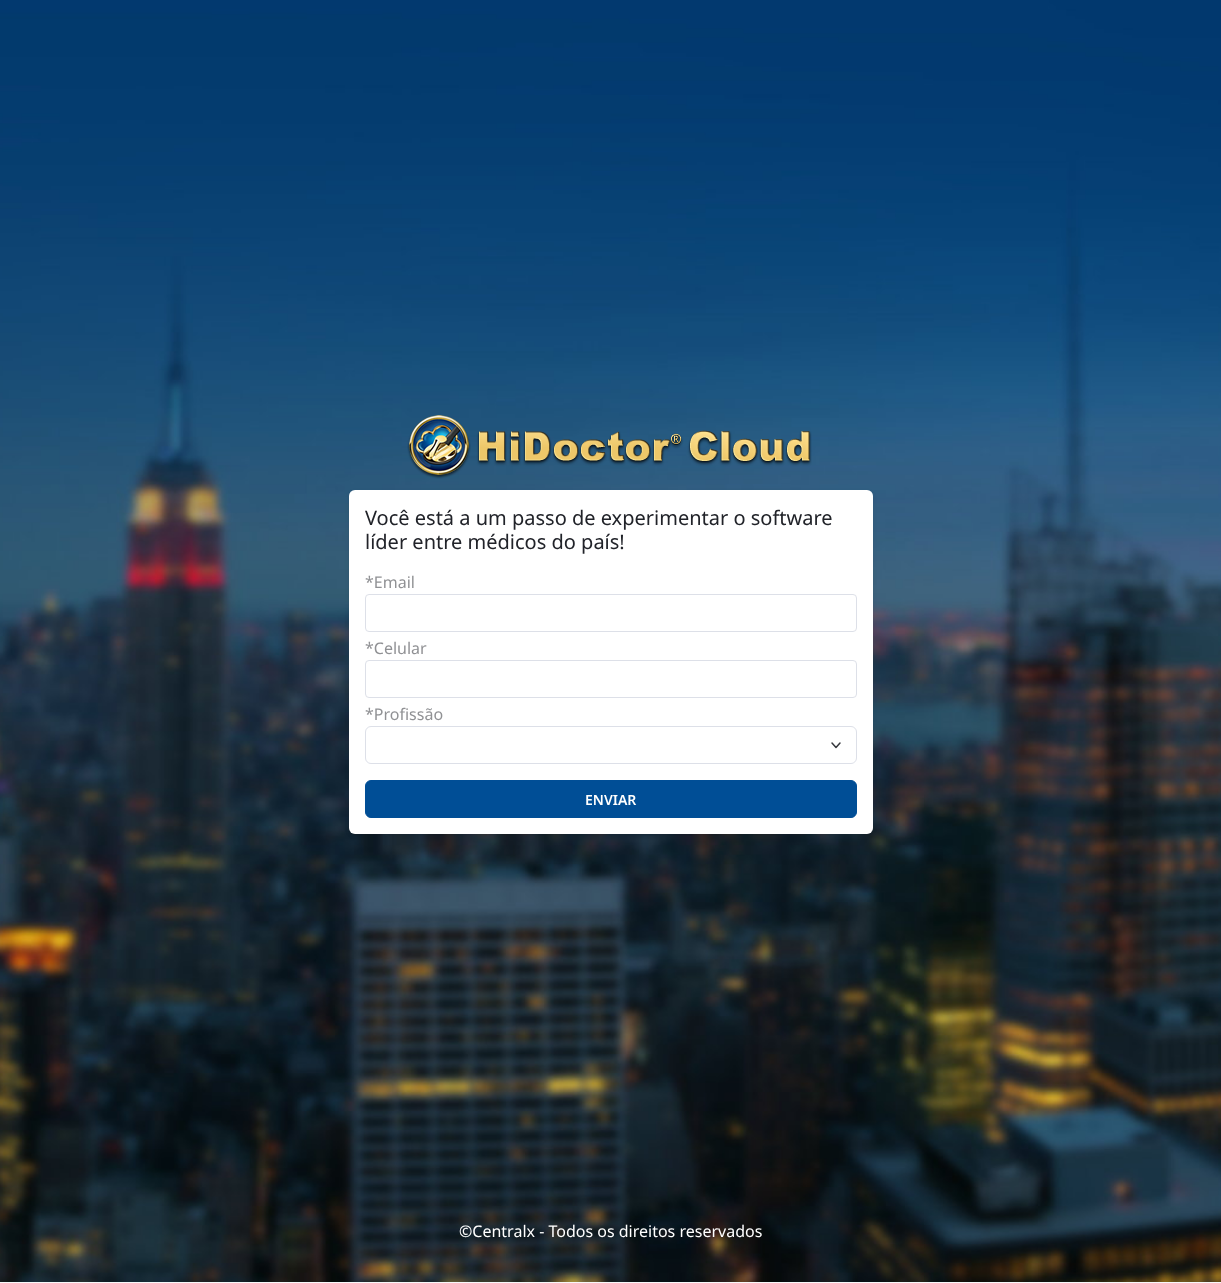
<svg xmlns="http://www.w3.org/2000/svg" width="1221" height="1283" viewBox="0 0 1221 1283">
  <rect width="100%" height="100%" fill="rgb(247,247,249)"/>
  <image x="0" y="0" width="1221" height="1282" href="pic1.png"/>
  <image x="407" y="415" width="405" height="64" href="pic2.png"/>
  <rect x="349" y="492" width="524" height="344" rx="6" fill="rgba(0,0,0,0.07)" filter="blur(2px)"/>
  <rect x="349" y="490" width="524" height="344" rx="6" fill="rgb(255,255,255)"/>
  <g font-family="Noto Sans" font-size="20" fill="rgb(33,35,41)">
    <text>
      <tspan x="365" y="525">Você está a um passo de experimentar o software</tspan>
      <tspan x="365" y="549">líder entre médicos do país!</tspan>
    </text>
  </g>
  <text x="365" y="588" font-family="Noto Sans" font-size="16" fill="rgb(144,145,148)">*Email</text>
  <rect x="365.5" y="594.5" width="491" height="37" rx="3.5" fill="none" stroke="rgb(221,224,232)"/>
  <text x="365" y="654" font-family="Noto Sans" font-size="16" fill="rgb(144,145,148)">*Celular</text>
  <rect x="365.5" y="660.5" width="491" height="37" rx="3.5" fill="none" stroke="rgb(221,224,232)"/>
  <text x="365" y="720" font-family="Noto Sans" font-size="16" fill="rgb(144,145,148)">*Profissão</text>
  <path d="M832 743L836 747.5L840 743" fill="none" stroke="rgb(55,57,62)" stroke-width="1.5" stroke-linecap="round" stroke-linejoin="round"/>
  <rect x="365.5" y="726.5" width="491" height="37" rx="5.5" fill="none" stroke="rgb(221,224,232)"/>
  <rect x="365.5" y="780.5" width="491" height="37" rx="5.5" fill="rgb(0,78,150)" stroke="rgb(0,78,150)"/>
  <text x="585" y="805" font-family="Noto Sans" font-size="14" font-weight="600" fill="rgb(255,255,255)">ENVIAR</text>
  <text x="459" y="1237" font-family="Noto Sans" font-size="16" fill="rgb(255,255,255)">©Centralx - Todos os direitos reservados</text>
</svg>
